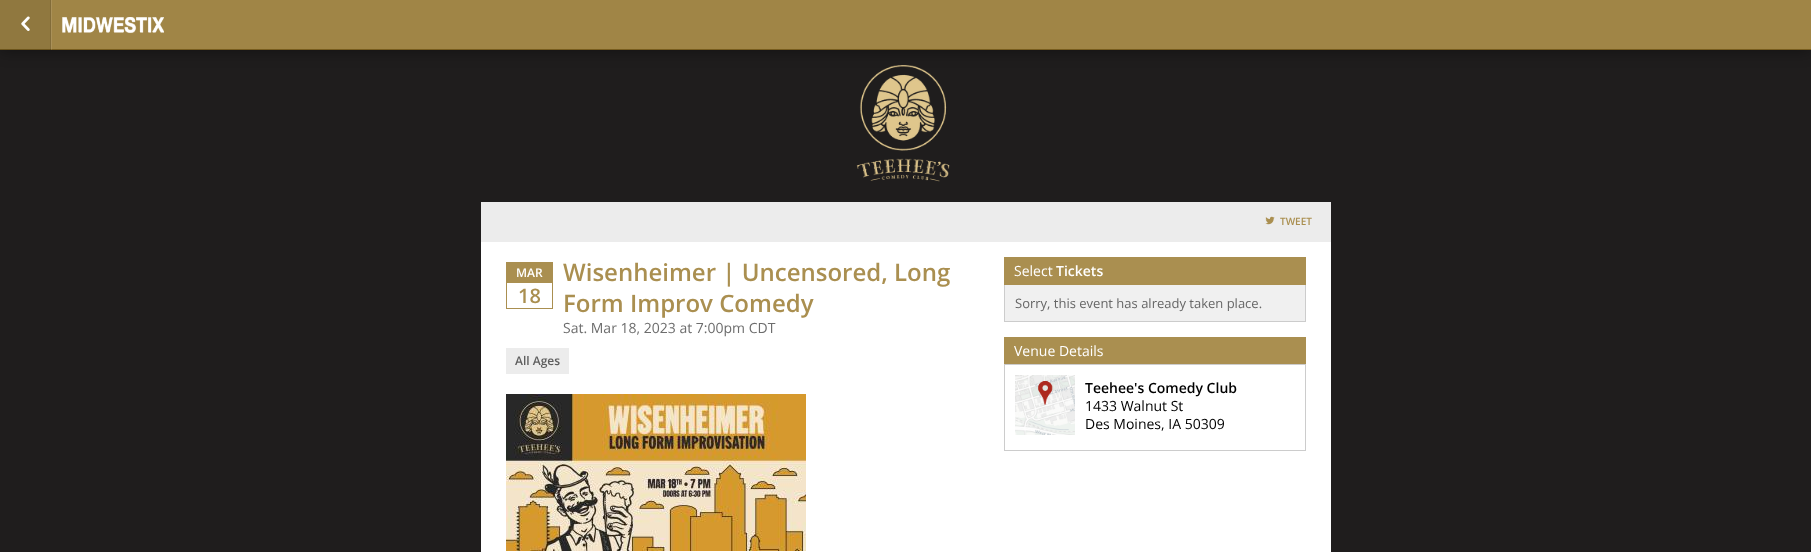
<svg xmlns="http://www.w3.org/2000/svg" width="1811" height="552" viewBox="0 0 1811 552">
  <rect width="100%" height="100%" fill="rgb(31,29,29)"/>
  <image x="856" y="65" width="94" height="117" href="pic3.png"/>
  <rect x="0" y="1" width="1811" height="50" fill="rgba(0,0,0,0.4)" filter="blur(7.5px)"/>
  <rect x="52" y="0" width="1759" height="49" fill="rgb(160,133,70)"/>
  <rect x="0" y="0" width="50" height="49" fill="rgb(144,120,63)"/>
  <rect x="50" y="0" width="1" height="50" fill="rgb(130,108,57)"/>
  <rect x="51" y="0" width="1" height="50" fill="rgb(170,145,89)"/>
  <rect x="52" y="49" width="1759" height="1" fill="rgb(120,93,30)"/>
  <rect x="0" y="49" width="51" height="1" fill="rgb(108,84,27)"/>
  <rect x="50" y="49" width="1" height="1" fill="rgb(97,76,24)"/>
  <rect x="51" y="49" width="1" height="1" fill="rgb(134,109,53)"/>
  <image x="21" y="16" width="9" height="15" href="pic1.png"/>
  <image x="62" y="17" width="102" height="17" href="pic2.png"/>
  <rect x="481" y="242" width="850" height="310" fill="rgb(255,255,255)"/>
  <rect x="481" y="202" width="850" height="40" fill="rgb(236,236,236)"/>
  <image x="1265" y="216" width="10" height="9" href="pic4.png"/>
  <text x="1280" y="225" font-family="Open Sans" font-size="10" font-weight="600" fill="rgb(170,143,80)">TWEET</text>
  <rect x="506.5" y="262.5" width="46" height="46" fill="none" stroke="rgb(170,143,80)"/>
  <rect x="507" y="263" width="45" height="20" fill="rgb(170,143,80)"/>
  <text x="516" y="277" font-family="Open Sans" font-size="12" font-weight="600" fill="rgb(255,255,255)">MAR</text>
  <text x="518" y="303" font-family="Open Sans" font-size="20" font-weight="600" fill="rgb(170,143,80)">18</text>
  <g font-family="Open Sans" font-size="24" font-weight="600" fill="rgb(170,143,80)">
    <text>
      <tspan x="563" y="281">Wisenheimer | Uncensored, Long</tspan>
      <tspan x="563" y="312">Form Improv Comedy</tspan>
    </text>
  </g>
  <text x="563" y="333" font-family="Open Sans" font-size="14" fill="rgb(109,109,109)">Sat. Mar 18, 2023 at 7:00pm CDT</text>
  <rect x="506" y="348" width="63" height="26" fill="rgb(236,236,236)"/>
  <text x="515" y="365" font-family="Open Sans" font-size="12" font-weight="600" fill="rgb(94,94,94)">All Ages</text>
  <image x="506" y="394" width="300" height="157" href="pic5.png"/>
  <rect x="1004" y="257" width="302" height="28" fill="rgb(170,143,80)"/>
  <text x="1014" y="276" font-family="Open Sans" font-size="14" fill="rgb(255,255,255)">Select</text>
  <text x="1056" y="276" font-family="Open Sans" font-size="14" font-weight="600" fill="rgb(255,255,255)">Tickets</text>
  <rect x="1005" y="285" width="300" height="36" fill="rgb(240,240,240)"/>
  <rect x="1305" y="285" width="1" height="37" fill="rgb(204,204,204)"/>
  <rect x="1004" y="321" width="302" height="1" fill="rgb(204,204,204)"/>
  <rect x="1004" y="285" width="1" height="37" fill="rgb(204,204,204)"/>
  <text x="1015" y="308" font-family="Open Sans" font-size="13" fill="rgb(102,102,102)">Sorry, this event has already taken place.</text>
  <rect x="1004" y="337" width="302" height="27" fill="rgb(170,143,80)"/>
  <text x="1014" y="356" font-family="Open Sans" font-size="14" fill="rgb(255,255,255)">Venue Details</text>
  <rect x="1004.5" y="364.5" width="301" height="86" fill="none" stroke="rgb(204,204,204)"/>
  <image x="1015" y="375" width="60" height="60" href="pic6.png"/>
  <text x="1085" y="393" font-family="Open Sans" font-size="14" font-weight="600" fill="rgb(0,0,0)">Teehee's Comedy Club</text>
  <g font-family="Open Sans" font-size="14" fill="rgb(0,0,0)">
    <text>
      <tspan x="1085" y="411">1433 Walnut St</tspan>
      <tspan x="1085" y="429">Des Moines, IA 50309</tspan>
    </text>
  </g>
</svg>
